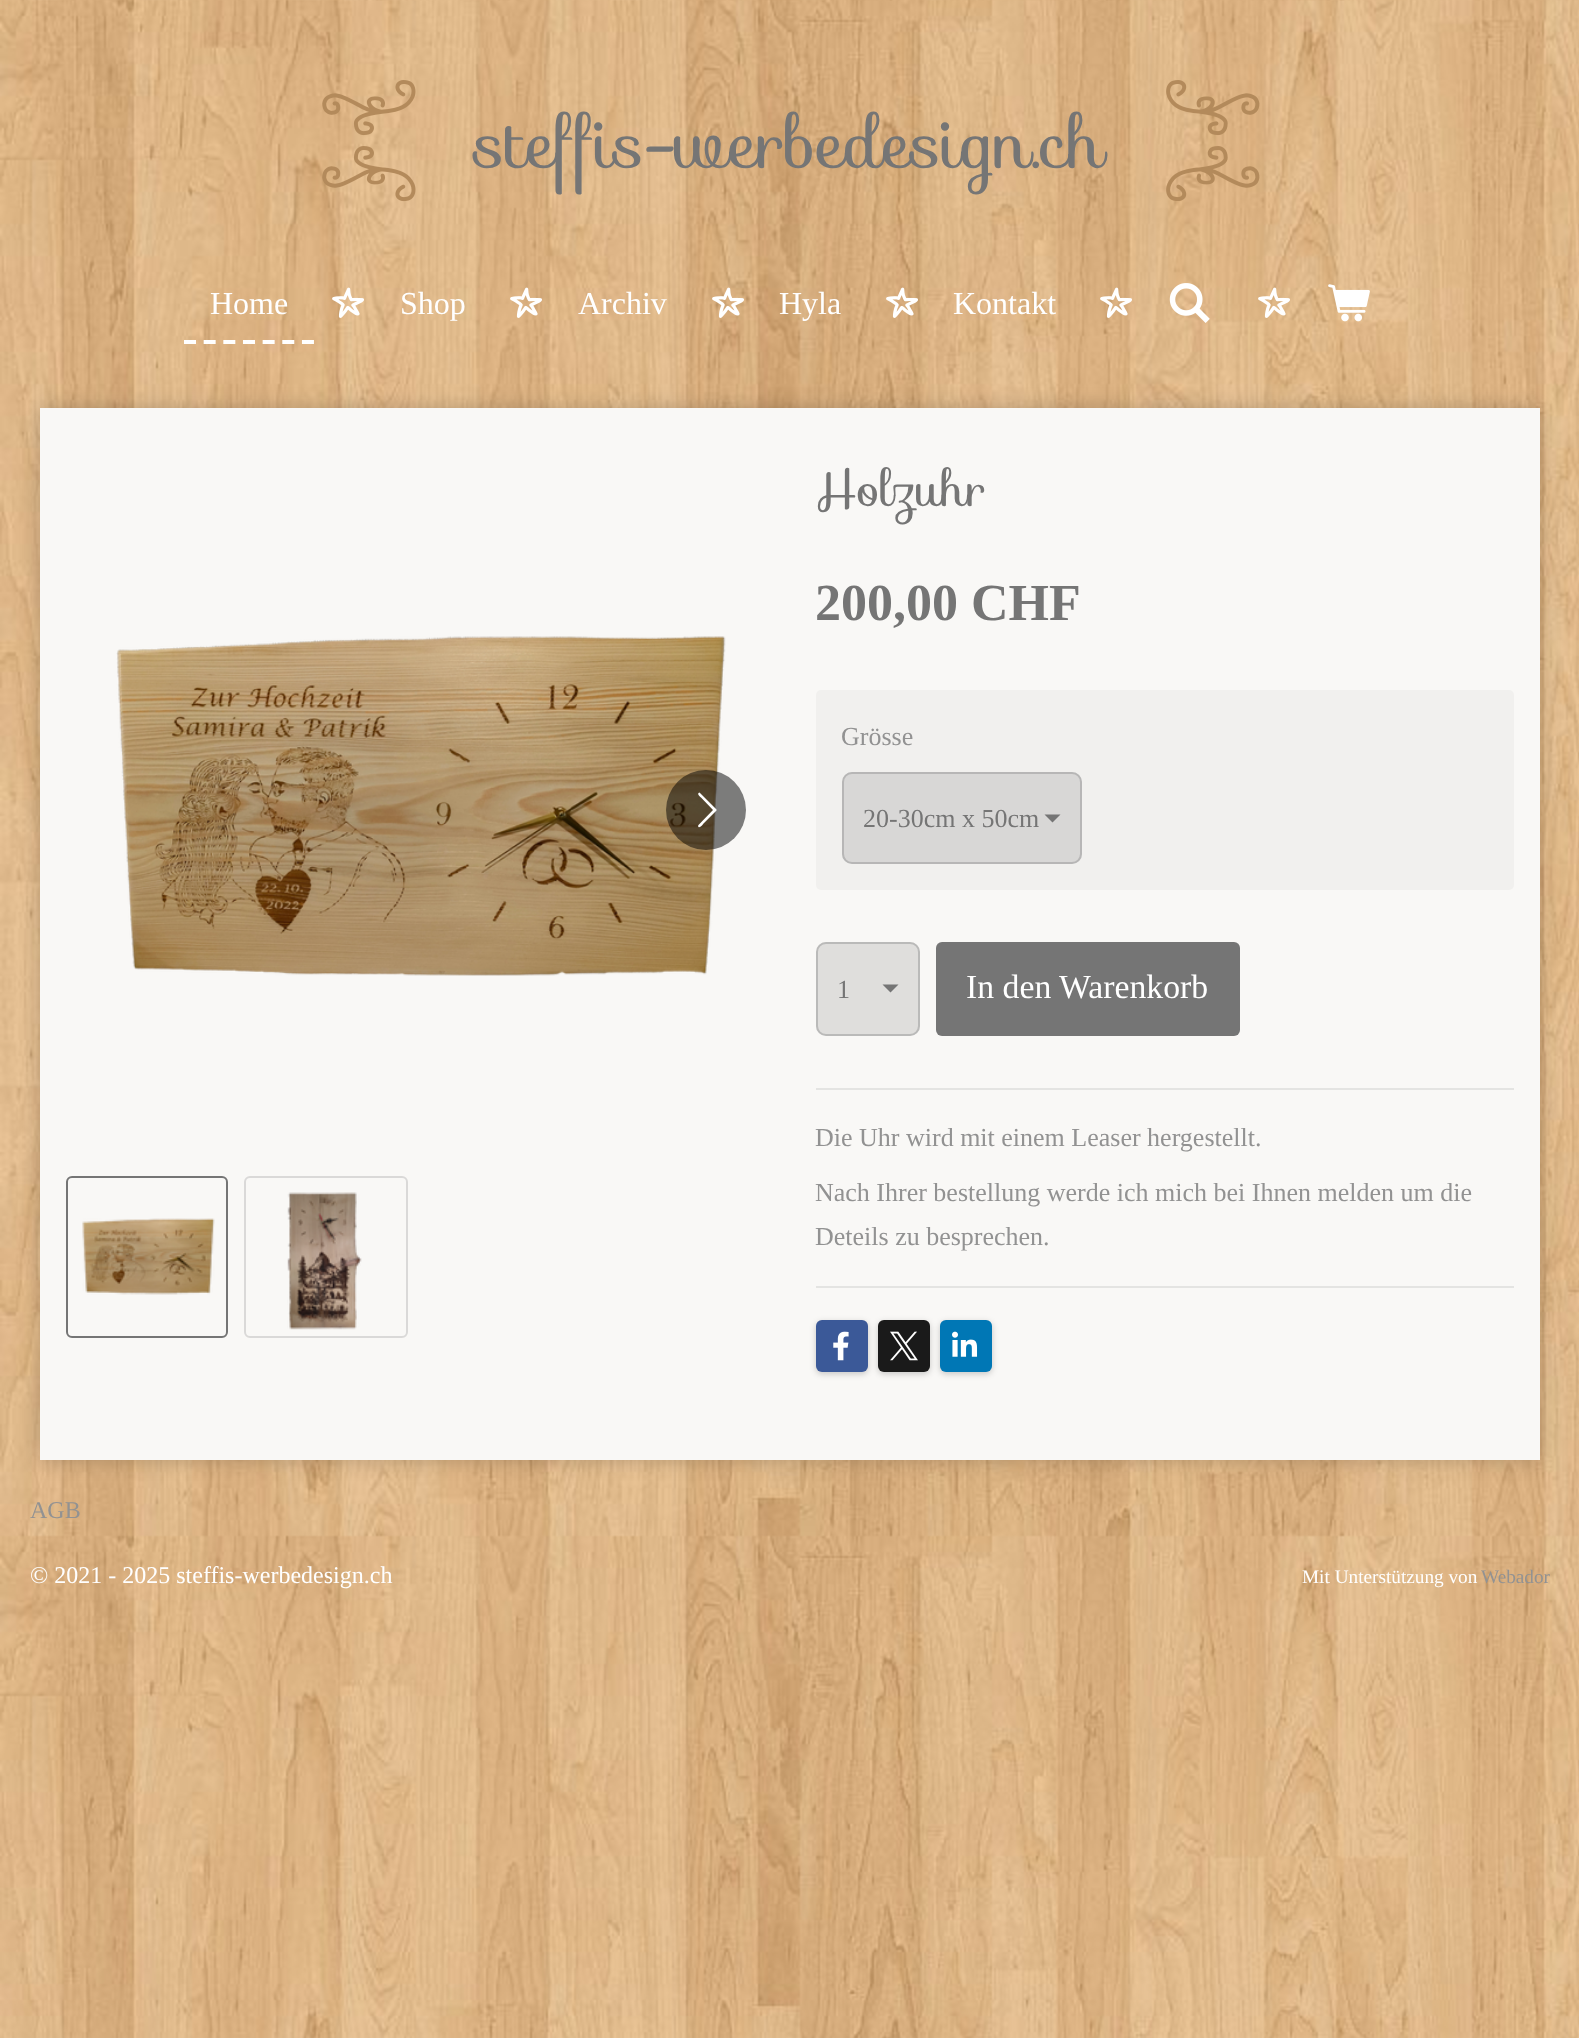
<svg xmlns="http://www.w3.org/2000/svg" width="1579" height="2038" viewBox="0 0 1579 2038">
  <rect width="100%" height="100%" fill="rgb(255,255,255)"/>
  <image x="0" y="0" width="1579" height="2038" href="pic1.png"/>
  <image x="322" y="80" width="94" height="122" href="pic2.png"/>
  <text x="475" y="168" font-family="Sofia" font-size="70" fill="rgb(117,117,117)">steffis-werbedesign.ch</text>
  <image x="1166" y="80" width="94" height="121" href="pic3.png"/>
  <path d="M184 342H314" fill="none" stroke="rgb(255,255,255)" stroke-width="4" stroke-dasharray="12 7.66"/>
  <text x="210" y="314" font-family="Liberation Serif" font-size="32" fill="rgb(255,255,255)">Home</text>
  <image x="332" y="287" width="32" height="31" href="pic4.png"/>
  <text x="400" y="314" font-family="Liberation Serif" font-size="32" fill="rgb(255,255,255)">Shop</text>
  <image x="510" y="287" width="32" height="31" href="pic5.png"/>
  <text x="578" y="314" font-family="Liberation Serif" font-size="32" fill="rgb(255,255,255)">Archiv</text>
  <image x="712" y="287" width="32" height="31" href="pic6.png"/>
  <text x="779" y="314" font-family="Liberation Serif" font-size="32" fill="rgb(255,255,255)">Hyla</text>
  <image x="886" y="287" width="32" height="31" href="pic7.png"/>
  <text x="953" y="314" font-family="Liberation Serif" font-size="32" fill="rgb(255,255,255)">Kontakt</text>
  <image x="1100" y="287" width="32" height="31" href="pic8.png"/>
  <image x="1169" y="283" width="41" height="40" href="pic9.png"/>
  <image x="1258" y="287" width="32" height="31" href="pic10.png"/>
  <image x="1328" y="284" width="42" height="38" href="pic11.png"/>
  <rect x="40" y="408" width="1500" height="1052" fill="rgba(0,0,0,0.2)" filter="blur(10px)"/>
  <rect x="40" y="408" width="1500" height="1052" fill="rgb(249,248,246)"/>
  <text x="815" y="506" font-family="Sofia" font-size="48.5" fill="rgb(117,117,117)">Holzuhr</text>
  <image x="116" y="636" width="610" height="340" href="pic12.png"/>
  <circle cx="706" cy="810" r="40" fill="rgba(0,0,0,0.5)"/>
  <path d="M698.5 825L713 810L701 797.5C700.5 797 696 793.5 699.5 792.5L700 793L716.5 809.5V810.5L703 824C703 824.5 699 829.5 698 826Z" fill="rgb(255,255,255)"/>
  <rect x="67" y="1177" width="160" height="160" rx="5" fill="none" stroke="rgb(117,117,117)" stroke-width="2"/>
  <image x="82" y="1218" width="133" height="77" href="pic13.png"/>
  <rect x="245" y="1177" width="162" height="160" rx="5" fill="none" stroke="rgb(218,217,216)" stroke-width="2"/>
  <image x="287" y="1192" width="75" height="138" href="pic14.png"/>
  <text x="815" y="620" font-family="Liberation Serif" font-size="52" font-weight="bold" fill="rgb(117,117,117)">200,00 CHF</text>
  <rect x="816" y="690" width="698" height="200" rx="5" fill="rgb(241,240,238)"/>
  <text x="841" y="745" font-family="Liberation Serif" font-size="26" fill="rgb(146,146,146)">Grösse</text>
  <rect x="842" y="772" width="240" height="92" rx="10" fill="rgb(216,215,214)"/>
  <path d="M1052.5 822.5L1044.5 814.5H1060.5Z" fill="rgb(117,117,117)"/>
  <rect x="843" y="773" width="238" height="90" rx="9" fill="none" stroke="rgba(150,150,149,0.5)" stroke-width="2"/>
  <text x="863" y="827" font-family="Liberation Serif" font-size="26" fill="rgb(117,117,117)">20-30cm x 50cm</text>
  <rect x="816" y="942" width="104" height="94" rx="10" fill="rgb(223,222,220)"/>
  <path d="M890.5 992.5L882.5 984.5H898.5Z" fill="rgb(117,117,117)"/>
  <rect x="817" y="943" width="102" height="92" rx="9" fill="none" stroke="rgba(150,150,149,0.5)" stroke-width="2"/>
  <text x="837" y="998" font-family="Liberation Serif" font-size="26" fill="rgb(117,117,117)">1</text>
  <rect x="936" y="942" width="304" height="94" rx="6" fill="rgb(117,117,117)"/>
  <text x="966" y="998" font-family="Liberation Serif" font-size="33.75" fill="rgb(255,255,255)">In den Warenkorb</text>
  <rect x="816" y="1088" width="698" height="2" fill="rgb(228,228,226)"/>
  <g font-family="Liberation Serif" font-size="26" fill="rgb(146,146,146)">
    <text x="815" y="1146">Die Uhr wird mit einem Leaser hergestellt.</text>
    <text>
      <tspan x="815" y="1201">Nach Ihrer bestellung werde ich mich bei Ihnen melden um die</tspan>
      <tspan x="815" y="1245">Deteils zu besprechen.</tspan>
    </text>
  </g>
  <rect x="816" y="1286" width="698" height="2" fill="rgb(228,228,226)"/>
  <rect x="816" y="1322" width="52" height="52" rx="6" fill="rgba(0,0,0,0.2)" filter="blur(3px)"/>
  <rect x="816" y="1320" width="52" height="52" rx="6" fill="rgb(59,89,152)"/>
  <image x="833" y="1331" width="16" height="30" href="pic15.png"/>
  <rect x="878" y="1322" width="52" height="52" rx="6" fill="rgba(0,0,0,0.2)" filter="blur(3px)"/>
  <rect x="878" y="1320" width="52" height="52" rx="6" fill="rgb(26,26,26)"/>
  <image x="890" y="1331" width="28" height="30" href="pic16.png"/>
  <rect x="940" y="1322" width="52" height="52" rx="6" fill="rgba(0,0,0,0.2)" filter="blur(3px)"/>
  <rect x="940" y="1320" width="52" height="52" rx="6" fill="rgb(0,119,181)"/>
  <image x="952" y="1331" width="26" height="26" href="pic17.png"/>
  <text x="30" y="1518" font-family="Liberation Serif" font-size="24" fill="rgb(146,146,146)">AGB</text>
  <text x="30" y="1583" font-family="Liberation Serif" font-size="24" fill="rgb(255,255,255)">© 2021 - 2025 steffis-werbedesign.ch</text>
  <text x="1302" y="1583" font-family="Liberation Serif" font-size="19.25" fill="rgb(255,255,255)">Mit Unterstützung von</text>
  <text x="1481" y="1583" font-family="Liberation Serif" font-size="19.25" fill="rgb(146,146,146)">Webador</text>
</svg>
